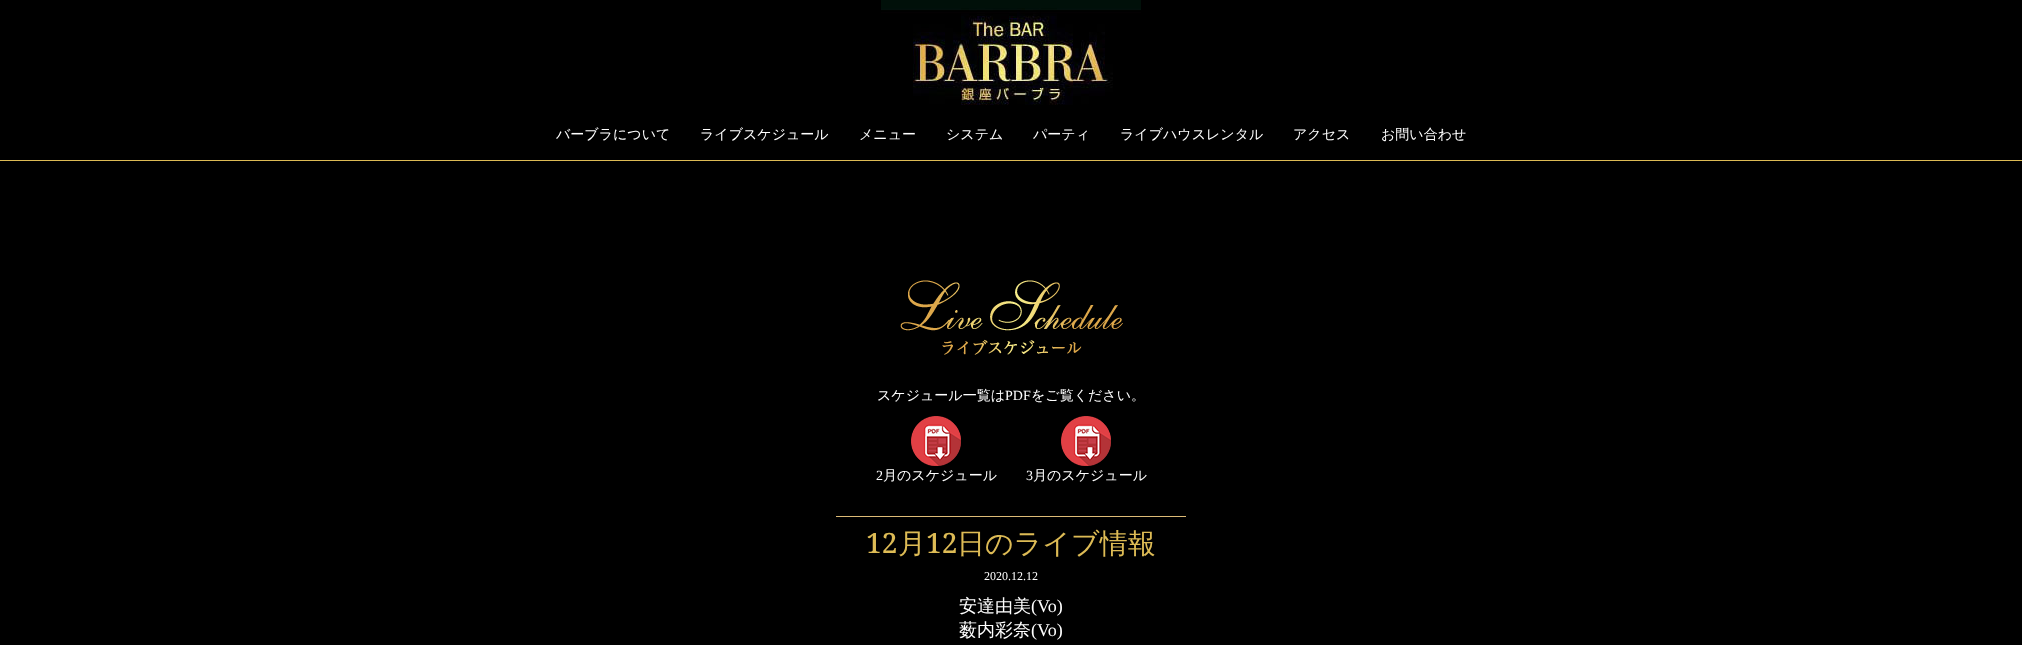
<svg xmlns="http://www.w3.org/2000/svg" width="2022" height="645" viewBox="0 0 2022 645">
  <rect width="100%" height="100%" fill="rgb(0,0,0)"/>
  <rect x="0" y="160" width="2022" height="1" fill="rgb(221,187,85)"/>
  <image x="881" y="0" width="260" height="105" href="pic1.png"/>
  <g font-family="WenQuanYi Zen Hei" font-size="14" font-weight="500" fill="rgb(255,255,255)">
    <text x="556" y="139">バーブラについて</text>
    <text x="700" y="139">ライブスケジュール</text>
    <text x="859" y="139">メニュー</text>
    <text x="946" y="139">システム</text>
    <text x="1033" y="139">パーティ</text>
    <text x="1120" y="139">ライブハウスレンタル</text>
    <text x="1293" y="139">アクセス</text>
    <text x="1381" y="139">お問い合わせ</text>
  </g>
  <image x="900" y="280" width="223" height="75" href="pic2.png"/>
  <text x="877" y="400" font-family="WenQuanYi Zen Hei" font-size="14" font-weight="500" fill="rgb(255,255,255)">スケジュール一覧は</text>
  <text x="1005" y="400" font-family="Liberation Serif" font-size="14" fill="rgb(255,255,255)">PDF</text>
  <text x="1031" y="400" font-family="WenQuanYi Zen Hei" font-size="14" font-weight="500" fill="rgb(255,255,255)">をご覧ください。</text>
  <image x="911" y="416" width="50" height="50" href="pic3.png"/>
  <text x="876" y="480" font-family="Liberation Serif" font-size="14" fill="rgb(255,255,255)">2</text>
  <text x="883" y="480" font-family="WenQuanYi Zen Hei" font-size="14" font-weight="500" fill="rgb(255,255,255)">月のスケジュール</text>
  <image x="1061" y="416" width="50" height="50" href="pic3.png"/>
  <text x="1026" y="480" font-family="Liberation Serif" font-size="14" fill="rgb(255,255,255)">3</text>
  <text x="1033" y="480" font-family="WenQuanYi Zen Hei" font-size="14" font-weight="500" fill="rgb(255,255,255)">月のスケジュール</text>
  <rect x="836" y="516" width="350" height="1" fill="rgb(221,187,119)"/>
  <text x="866" y="553" font-family="Noto Serif" font-size="28" font-weight="500" fill="rgb(221,187,85)">12</text>
  <text x="898" y="553" font-family="WenQuanYi Zen Hei" font-size="28" font-weight="500" fill="rgb(221,187,85)">月</text>
  <text x="926" y="553" font-family="Noto Serif" font-size="28" font-weight="500" fill="rgb(221,187,85)">12</text>
  <text x="957" y="553" font-family="WenQuanYi Zen Hei" font-size="28" font-weight="500" fill="rgb(221,187,85)">日のライブ情報</text>
  <text x="984" y="580" font-family="Liberation Serif" font-size="12" fill="rgb(255,255,255)">2020.12.12</text>
  <text x="959" y="612" font-family="WenQuanYi Zen Hei" font-size="18" font-weight="500" fill="rgb(255,255,255)">安達由美</text>
  <text x="1031" y="612" font-family="Liberation Serif" font-size="18" fill="rgb(255,255,255)">(Vo)</text>
  <text x="959" y="636" font-family="WenQuanYi Zen Hei" font-size="18" font-weight="500" fill="rgb(255,255,255)">薮内彩奈</text>
  <text x="1031" y="636" font-family="Liberation Serif" font-size="18" fill="rgb(255,255,255)">(Vo)</text>
</svg>
